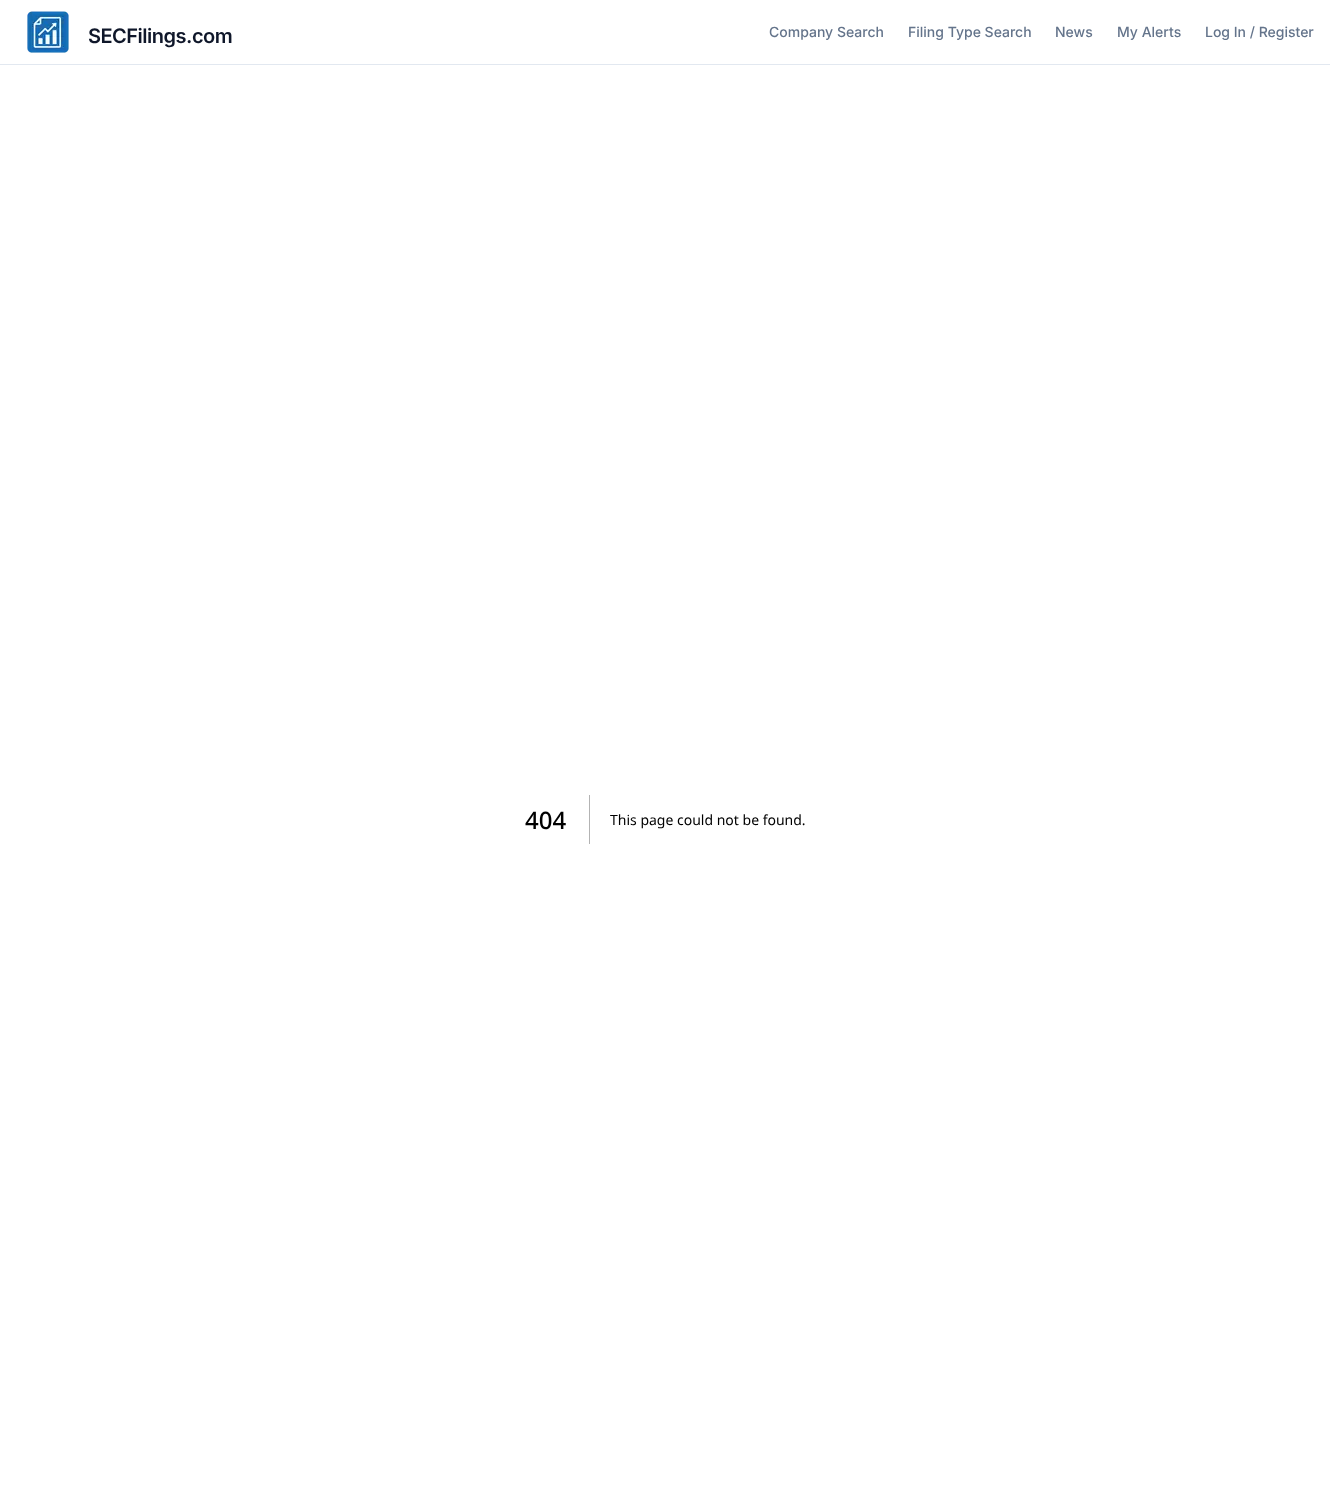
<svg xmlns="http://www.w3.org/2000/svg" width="1330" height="1509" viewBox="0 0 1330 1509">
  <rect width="100%" height="100%" fill="rgb(255,255,255)"/>
  <rect x="0" y="64" width="1330" height="1" fill="rgb(226,232,240)"/>
  <image x="27" y="11" width="42" height="42" href="pic1.png"/>
  <text x="88" y="43" font-family="Inter" font-size="20" font-weight="600" letter-spacing="-0.5" fill="rgb(15,23,42)">SECFilings.com</text>
  <g font-family="Inter" font-size="14" font-weight="500" fill="rgb(100,116,139)">
    <text x="769" y="37">Company Search</text>
    <text x="908" y="37">Filing Type Search</text>
    <text x="1055" y="37">News</text>
    <text x="1117" y="37">My Alerts</text>
    <text x="1205" y="37">Log In / Register</text>
  </g>
  <rect x="589" y="795" width="1" height="49" fill="rgb(179,179,179)"/>
  <text x="525" y="829" font-family="Noto Sans" font-size="24" font-weight="500" fill="rgb(0,0,0)">404</text>
  <text x="610" y="825" font-family="Noto Sans" font-size="14" fill="rgb(0,0,0)">This page could not be found.</text>
</svg>
